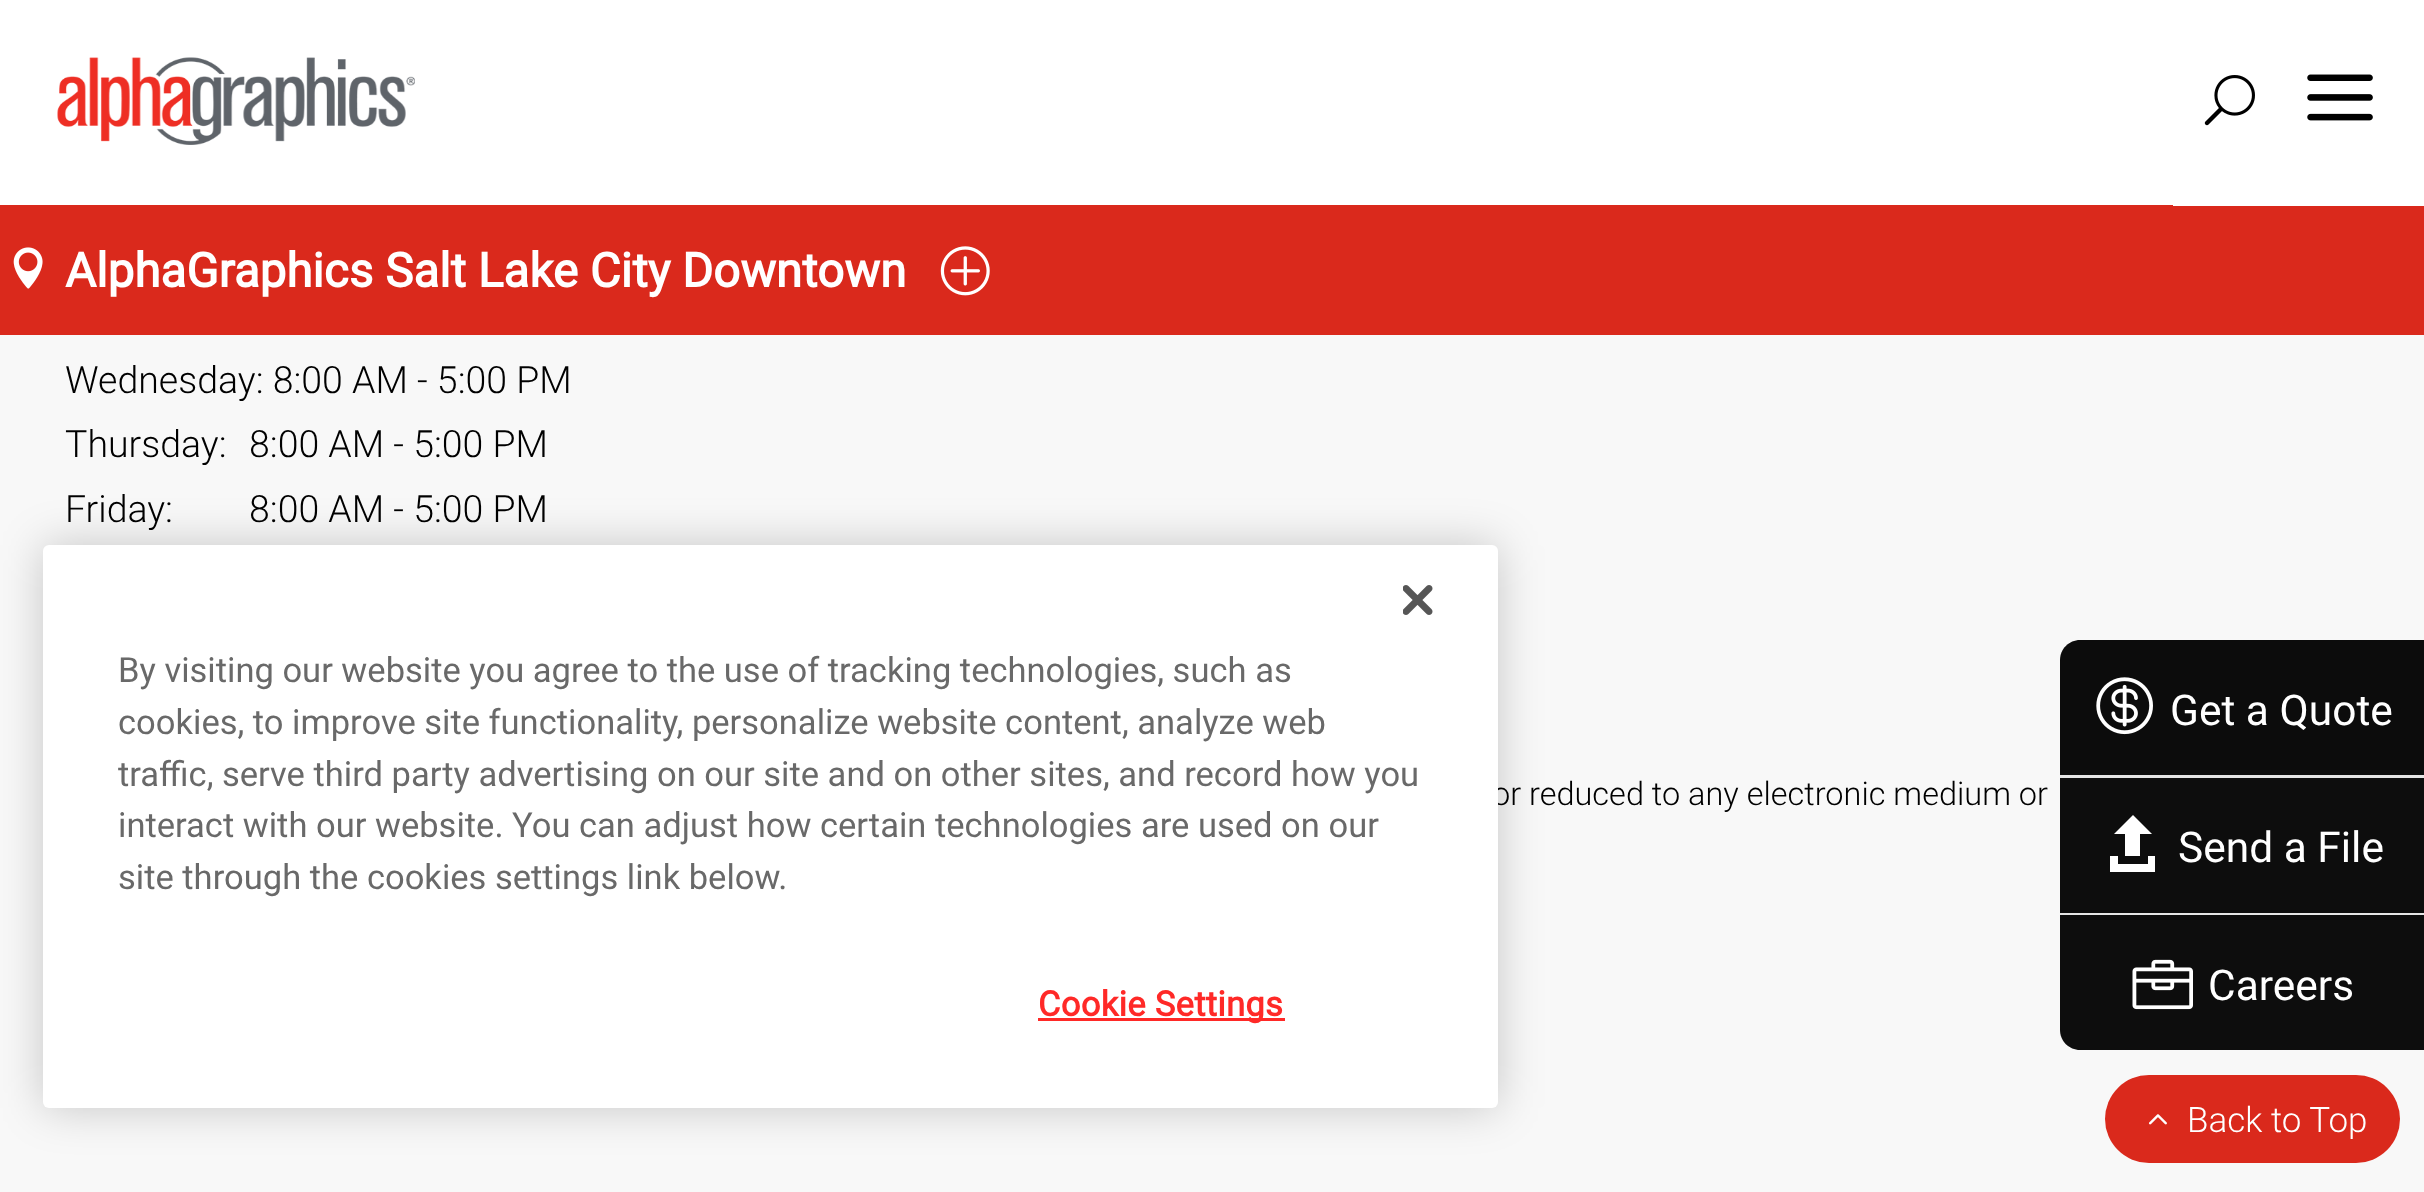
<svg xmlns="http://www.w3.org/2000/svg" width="2424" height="1192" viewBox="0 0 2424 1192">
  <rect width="100%" height="100%" fill="rgb(248,248,248)"/>
  <rect x="0" y="0" width="2424" height="205" fill="rgb(255,255,255)"/>
  <rect x="0" y="205" width="2424" height="130" fill="rgb(218,41,28)"/>
  <image x="13" y="247" width="30" height="42" href="pic1.png"/>
  <text x="65" y="287" font-family="Roboto" font-size="47.5" font-weight="bold" fill="rgb(255,255,255)">AlphaGraphics Salt Lake City Downtown</text>
  <image x="940" y="246" width="50" height="50" href="pic2.png"/>
  <image x="57" y="57" width="358" height="88" href="pic3.png"/>
  <rect x="2173" y="205" width="251" height="1" fill="rgb(255,255,255)"/>
  <image x="2204" y="75" width="51" height="51" href="pic4.png"/>
  <image x="2307" y="74" width="66" height="47" href="pic5.png"/>
  <path d="M2080 640H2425V778H2060V660C2060 649 2069 640 2080 640Z" fill="rgb(12,12,12)"/>
  <rect x="2060" y="775" width="364" height="3" fill="rgb(229,229,229)"/>
  <image x="2096" y="677" width="57" height="58" href="pic6.png"/>
  <text x="2170" y="725" font-family="Roboto" font-size="42.5" fill="rgb(255,255,255)">Get a Quote</text>
  <rect x="2060" y="778" width="364" height="135" fill="rgba(0,0,0,0.95)"/>
  <rect x="2060" y="913" width="364" height="3" fill="rgb(229,229,229)"/>
  <path d="M2114 834H2125V856H2140V834H2152L2133 815ZM2148 864H2118V856H2110V872H2155V856H2148Z" fill="rgb(255,255,255)"/>
  <text x="2178" y="862" font-family="Roboto" font-size="42.5" fill="rgb(255,255,255)">Send a File</text>
  <path d="M2060 915H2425V1050H2080C2069 1050 2060 1041 2060 1030Z" fill="rgba(0,0,0,0.95)"/>
  <image x="2132" y="959" width="61" height="51" href="pic7.png"/>
  <text x="2208" y="1000" font-family="Roboto" font-size="42.5" fill="rgb(255,255,255)">Careers</text>
  <g font-family="Roboto" font-size="37.5" font-weight="300" fill="rgb(0,0,0)">
    <text>
      <tspan x="65" y="393">Wednesday: 8:00 AM - 5:00 PM</tspan>
      <tspan x="65" y="457">Thursday:</tspan>
    </text>
    <text x="249" y="457">8:00 AM - 5:00 PM</text>
    <text x="65" y="522">Friday:</text>
    <text x="249" y="522">8:00 AM - 5:00 PM</text>
  </g>
  <text x="1492" y="805" font-family="Roboto" font-size="32.5" font-weight="300" fill="rgb(0,0,0)">or reduced to any electronic medium or</text>
  <rect x="2105" y="1075" width="295" height="88" rx="44" fill="rgb(218,41,28)"/>
  <image x="2148" y="1114" width="19" height="11" href="pic8.png"/>
  <text x="2187" y="1132" font-family="Roboto" font-size="35" font-weight="300" fill="rgb(255,255,255)">Back to Top</text>
  <rect x="43" y="545" width="1455" height="563" rx="6" fill="rgba(0,0,0,0.2)" filter="blur(22.5px)"/>
  <rect x="43" y="545" width="1455" height="563" rx="6" fill="rgb(255,255,255)"/>
  <image x="1403" y="585" width="30" height="30" href="pic9.png"/>
  <g font-family="Roboto" font-size="34.55" fill="rgb(105,105,105)">
    <text>
      <tspan x="118" y="682">By visiting our website you agree to the use of tracking technologies, such as</tspan>
      <tspan x="118" y="734">cookies, to improve site functionality, personalize website content, analyze web</tspan>
      <tspan x="118" y="786">traffic, serve third party advertising on our site and on other sites, and record how you</tspan>
      <tspan x="118" y="837">interact with our website. You can adjust how certain technologies are used on our</tspan>
      <tspan x="118" y="889">site through the cookies settings link below.</tspan>
    </text>
  </g>
  <rect x="1038" y="1018" width="247" height="3" fill="rgb(255,41,39)"/>
  <text x="1038" y="1016" font-family="Roboto" font-size="34.55" font-weight="bold" letter-spacing="0.3" fill="rgb(255,41,39)">Cookie Settings</text>
</svg>
